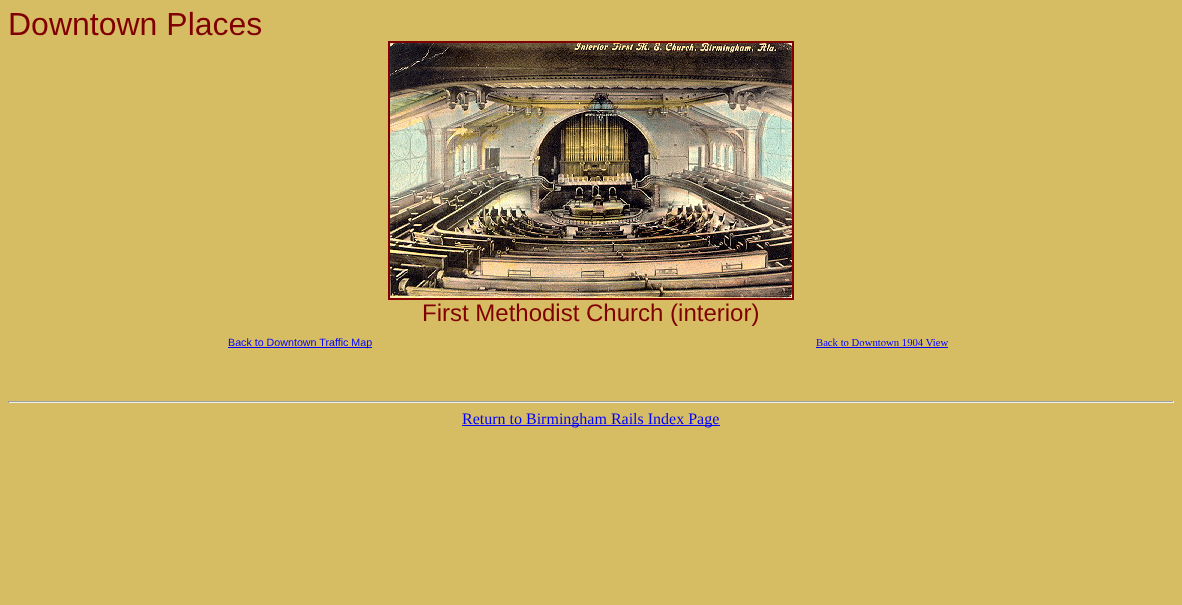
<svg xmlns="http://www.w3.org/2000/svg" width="1182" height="605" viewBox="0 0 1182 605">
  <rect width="100%" height="100%" fill="rgb(214,189,99)"/>
  <text x="8" y="35" font-family="Liberation Sans" font-size="32" fill="rgb(128,0,0)">Downtown Places</text>
  <rect x="389" y="42" width="404" height="257" fill="none" stroke="rgb(128,0,0)" stroke-width="2"/>
  <image x="390" y="43" width="402" height="255" href="pic1.png"/>
  <text x="422" y="321" font-family="Liberation Sans" font-size="24" fill="rgb(128,0,0)">First Methodist Church (interior)</text>
  <rect x="228" y="347" width="144" height="1" fill="rgb(0,0,255)"/>
  <text x="228" y="346" font-family="Liberation Sans" font-size="10.7" fill="rgb(0,0,255)">Back to Downtown Traffic Map</text>
  <text x="816" y="346" font-family="Liberation Serif" font-size="10.7" fill="rgb(0,0,255)">Back to Downtown 1904 View</text>
  <rect x="816" y="347" width="132" height="1" fill="rgb(0,0,255)"/>
  <rect x="8" y="401" width="1166" height="1" fill="rgb(159,159,159)"/>
  <rect x="1173" y="401" width="1" height="2" fill="rgb(238,238,238)"/>
  <rect x="8" y="402" width="1166" height="1" fill="rgb(238,238,238)"/>
  <rect x="8" y="401" width="1" height="2" fill="rgb(159,159,159)"/>
  <rect x="462" y="425" width="258" height="1" fill="rgb(0,0,255)"/>
  <text x="462" y="424" font-family="Liberation Serif" font-size="16" fill="rgb(0,0,255)">Return to Birmingham Rails Index Page</text>
</svg>
